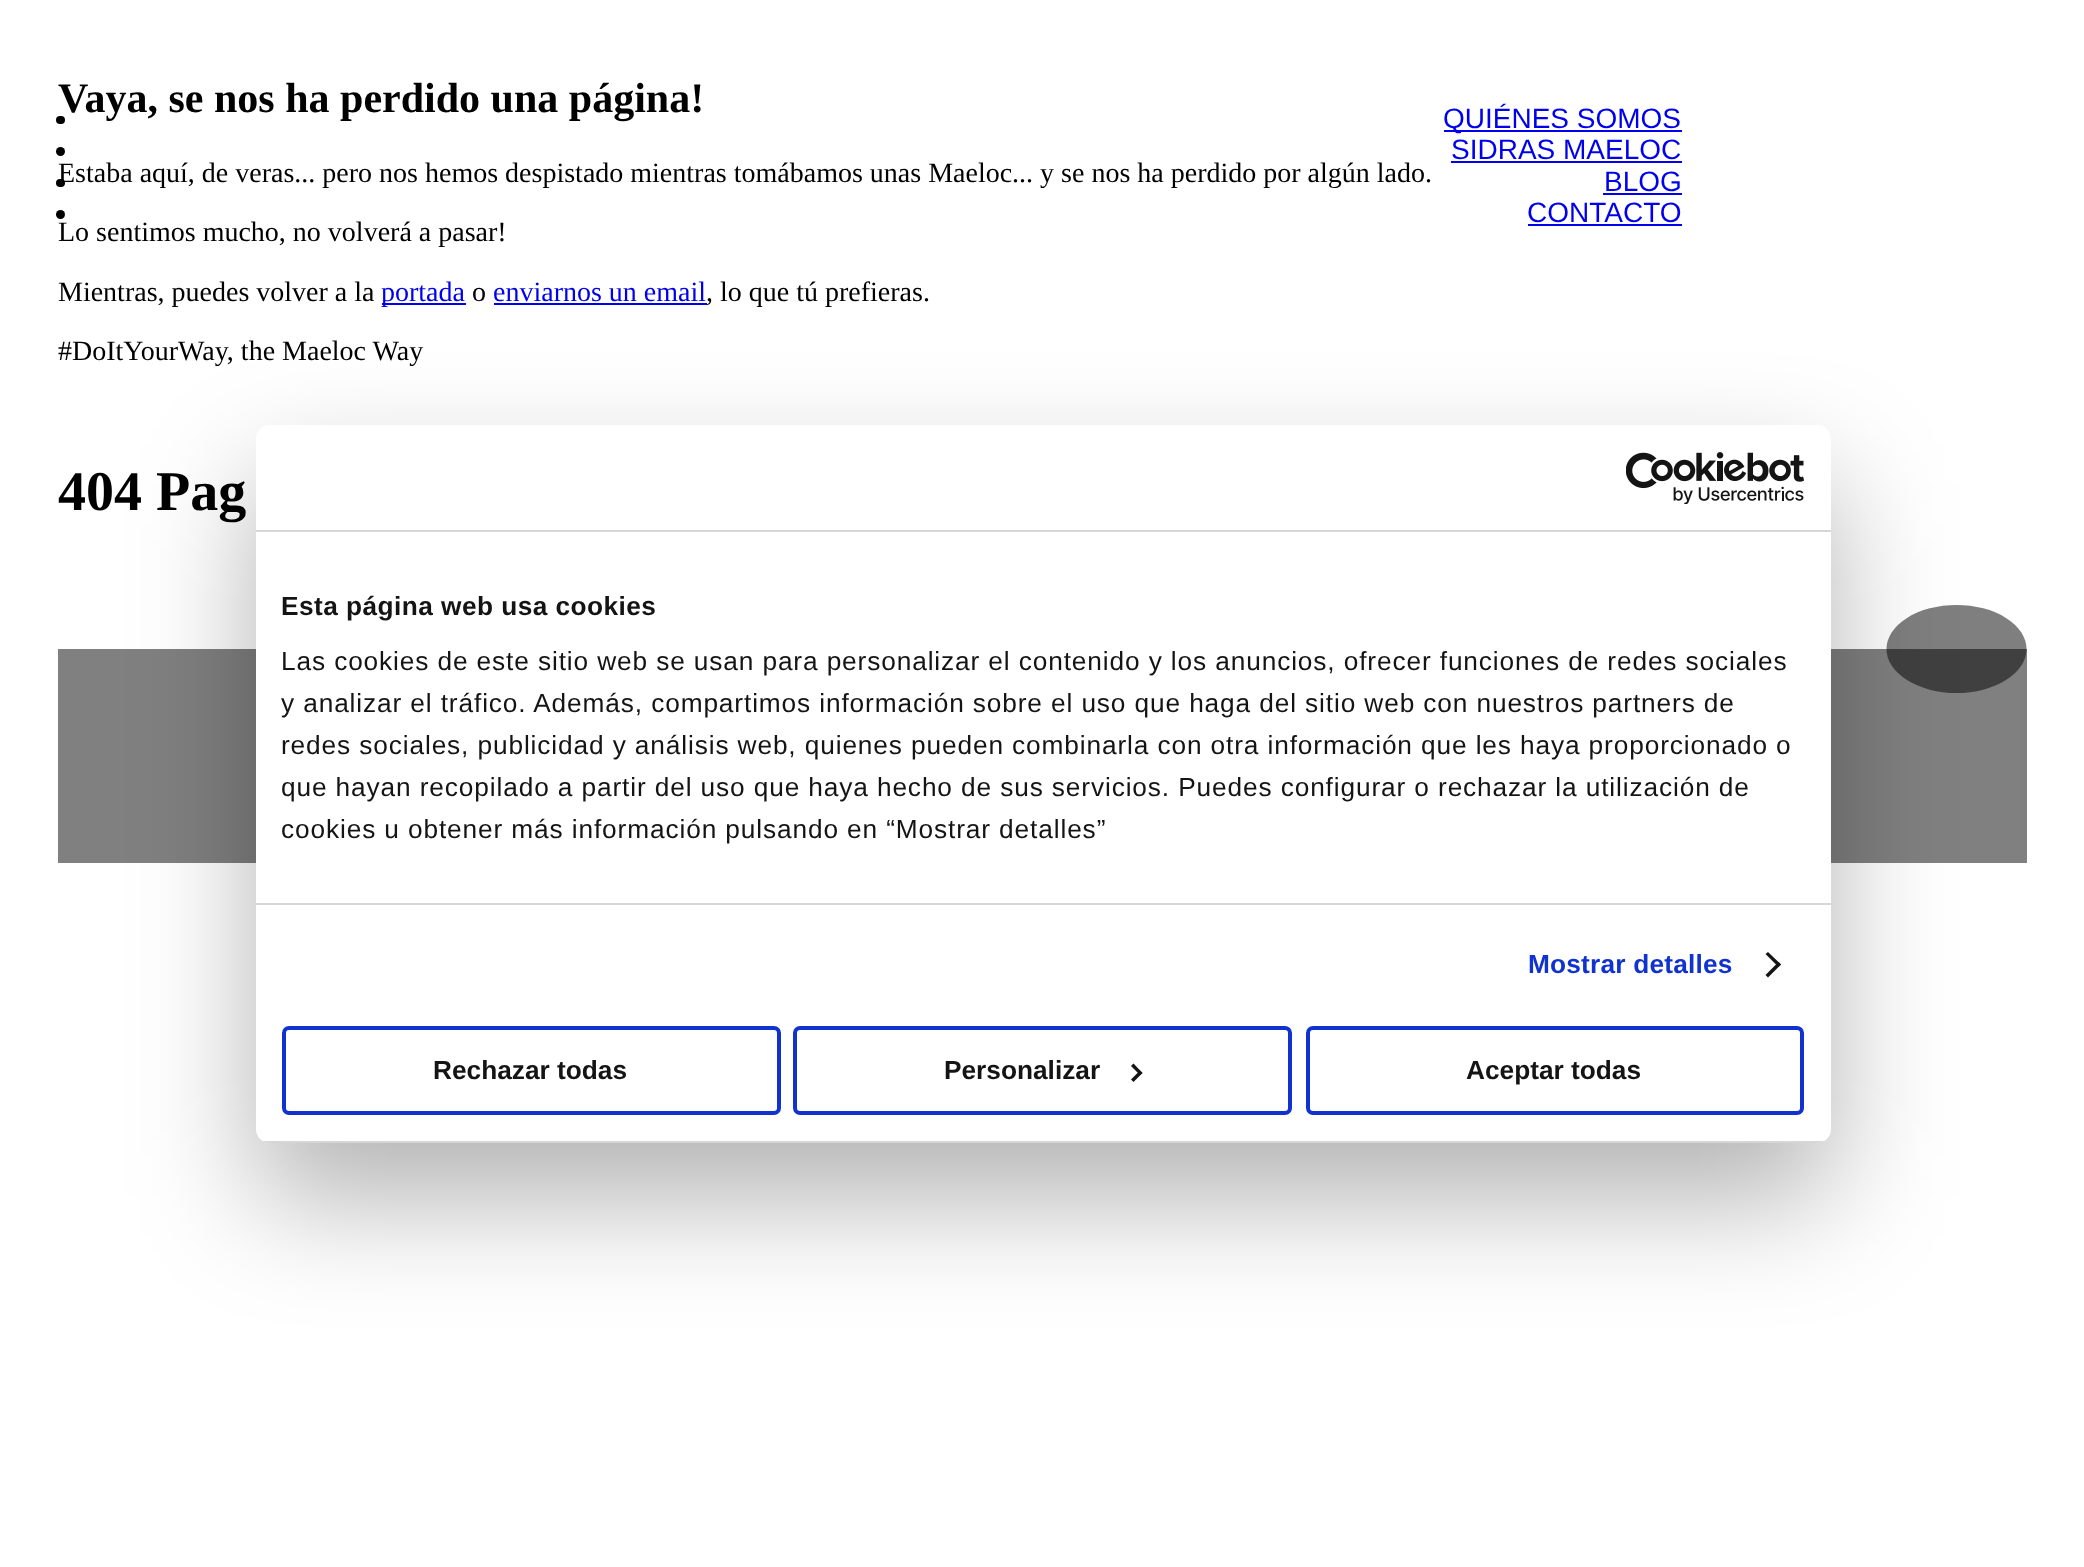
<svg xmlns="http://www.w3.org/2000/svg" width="2084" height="1567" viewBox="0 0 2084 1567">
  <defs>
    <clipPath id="clip1"><rect x="256" y="425" width="1575" height="718" rx="14"/></clipPath>
  </defs>
  <rect width="100%" height="100%" fill="rgb(255,255,255)"/>
  <text x="58" y="112" font-family="Liberation Serif" font-size="42" font-weight="bold" fill="rgb(0,0,0)">Vaya, se nos ha perdido una página!</text>
  <g font-family="Liberation Serif" font-size="28" fill="rgb(0,0,0)">
    <text x="58" y="182">Estaba aquí, de veras... pero nos hemos despistado mientras tomábamos unas Maeloc... y se nos ha perdido por algún lado.</text>
    <text x="58" y="241">Lo sentimos mucho, no volverá a pasar!</text>
    <text x="58" y="301">Mientras, puedes volver a la</text>
  </g>
  <rect x="382" y="303" width="84" height="2" fill="rgb(0,0,238)"/>
  <text x="381" y="301" font-family="Liberation Serif" font-size="28" fill="rgb(0,0,238)">portada</text>
  <text x="472" y="301" font-family="Liberation Serif" font-size="28" fill="rgb(0,0,0)">o</text>
  <text x="493" y="301" font-family="Liberation Serif" font-size="28" fill="rgb(0,0,238)">enviarnos un email</text>
  <rect x="494" y="303" width="213" height="2" fill="rgb(0,0,238)"/>
  <g font-family="Liberation Serif" font-size="28" fill="rgb(0,0,0)">
    <text x="706" y="301">, lo que tú prefieras.</text>
    <text x="58" y="360">#DoItYourWay, the Maeloc Way</text>
  </g>
  <rect x="56" y="116" width="9" height="8" rx="4" fill="rgb(0,0,0)"/>
  <rect x="1444" y="130" width="238" height="2" fill="rgb(0,0,238)"/>
  <text x="1443" y="128" font-family="Liberation Sans" font-size="28" fill="rgb(0,0,238)">QUIÉNES SOMOS</text>
  <circle cx="60.5" cy="151.5" r="4.5" fill="rgb(0,0,0)"/>
  <text x="1451" y="159" font-family="Liberation Sans" font-size="28" fill="rgb(0,0,238)">SIDRAS MAELOC</text>
  <rect x="1451" y="161" width="231" height="2" fill="rgb(0,0,238)"/>
  <rect x="56" y="179" width="9" height="8" rx="4" fill="rgb(0,0,0)"/>
  <text x="1604" y="191" font-family="Liberation Sans" font-size="28" fill="rgb(0,0,238)">BLOG</text>
  <rect x="1603" y="193" width="79" height="2" fill="rgb(0,0,238)"/>
  <circle cx="60.5" cy="214.5" r="4.5" fill="rgb(0,0,0)"/>
  <text x="1527" y="222" font-family="Liberation Sans" font-size="28" fill="rgb(0,0,238)">CONTACTO</text>
  <rect x="1528" y="224" width="154" height="2" fill="rgb(0,0,238)"/>
  <text x="58" y="510" font-family="Liberation Serif" font-size="56" font-weight="bold" fill="rgb(0,0,0)">404 Pag</text>
  <rect x="58" y="649" width="1969" height="214" fill="rgb(128,128,128)"/>
  <ellipse cx="1956.5" cy="649" rx="70" ry="44" fill="rgba(0,0,0,0.5)"/>
  <rect x="256" y="481" width="1575" height="718" rx="14" fill="rgba(0,0,0,0.3)" filter="blur(59.5px)"/>
  <rect x="256" y="425" width="1575" height="718" rx="14" fill="rgb(255,255,255)"/>
  <rect x="256" y="530" width="1575" height="2" fill="rgb(214,214,214)"/>
  <image x="1626" y="452" width="178" height="52" href="pic1.png"/>
  <rect x="256" y="903" width="1575" height="2" fill="rgb(214,214,214)"/>
  <text x="281" y="615" font-family="Liberation Sans" font-size="26.25" font-weight="bold" letter-spacing="0.45" fill="rgb(20,20,20)">Esta página web usa cookies</text>
  <g font-family="Liberation Sans" font-size="26.25" letter-spacing="0.88" fill="rgb(20,20,20)">
    <text>
      <tspan x="281" y="670">Las cookies de este sitio web se usan para personalizar el contenido y los anuncios, ofrecer funciones de redes sociales</tspan>
      <tspan x="281" y="712">y analizar el tráfico. Además, compartimos información sobre el uso que haga del sitio web con nuestros partners de</tspan>
      <tspan x="281" y="754">redes sociales, publicidad y análisis web, quienes pueden combinarla con otra información que les haya proporcionado o</tspan>
      <tspan x="281" y="796">que hayan recopilado a partir del uso que haya hecho de sus servicios. Puedes configurar o rechazar la utilización de</tspan>
      <tspan x="281" y="838">cookies u obtener más información pulsando en “Mostrar detalles”</tspan>
    </text>
  </g>
  <text x="1528" y="973" font-family="Liberation Sans" font-size="26.25" font-weight="bold" letter-spacing="0.2" fill="rgb(16,50,207)">Mostrar detalles</text>
  <path d="M1768 952L1781 964.5L1778.5 967L1765.5 954Z" fill="rgb(20,20,20)"/>
  <path d="M1778.5 962L1781 964.5L1768 977.5L1765.5 975Z" fill="rgb(20,20,20)"/>
  <g clip-path="url(#clip1)">
    <rect x="256" y="1141" width="1575" height="2" fill="rgb(214,214,214)"/>
  </g>
  <rect x="284" y="1028" width="495" height="85" rx="5" fill="none" stroke="rgb(16,50,207)" stroke-width="4"/>
  <text x="433" y="1079" font-family="Liberation Sans" font-size="26.25" font-weight="bold" fill="rgb(20,20,20)">Rechazar todas</text>
  <rect x="795" y="1028" width="495" height="85" rx="5" fill="none" stroke="rgb(16,50,207)" stroke-width="4"/>
  <text x="944" y="1079" font-family="Liberation Sans" font-size="26.25" font-weight="bold" fill="rgb(20,20,20)">Personalizar</text>
  <path d="M1133.5 1063.5L1142.5 1073L1140 1075L1131 1066Z" fill="rgb(20,20,20)"/>
  <path d="M1140 1070.5L1142.5 1073L1133.5 1082L1131 1079.5Z" fill="rgb(20,20,20)"/>
  <rect x="1308" y="1028" width="494" height="85" rx="5" fill="none" stroke="rgb(16,50,207)" stroke-width="4"/>
  <text x="1466" y="1079" font-family="Liberation Sans" font-size="26.25" font-weight="bold" fill="rgb(20,20,20)">Aceptar todas</text>
</svg>
